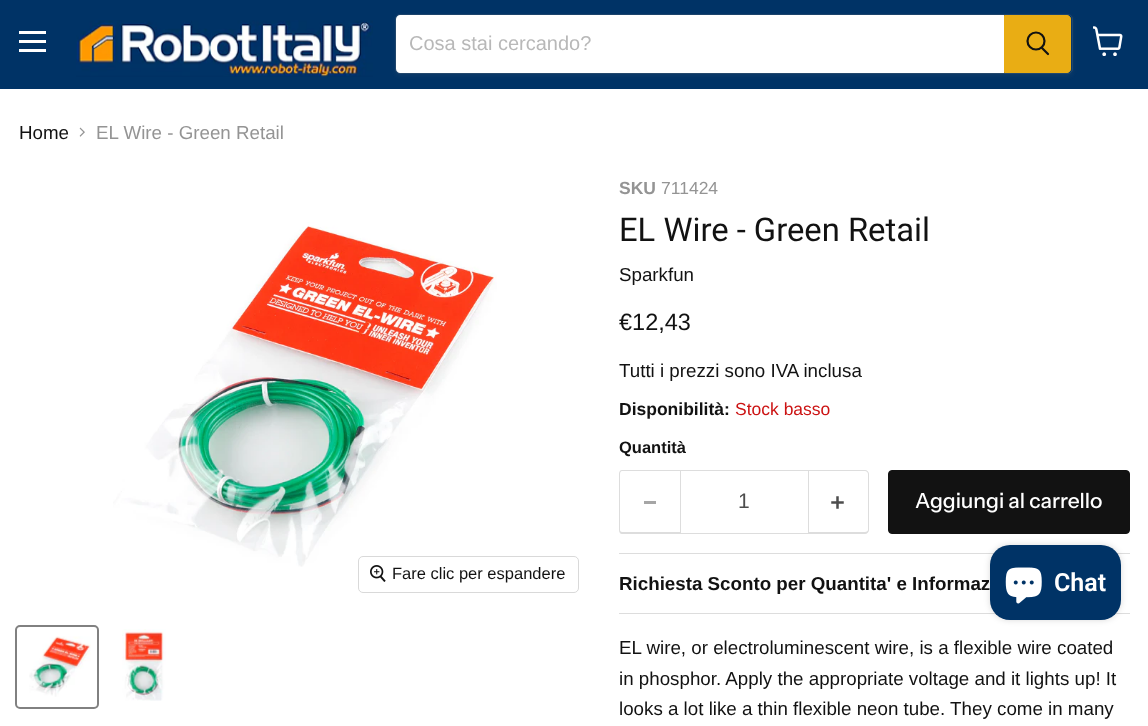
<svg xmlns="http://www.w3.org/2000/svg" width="1148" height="726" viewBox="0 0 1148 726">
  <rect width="100%" height="100%" fill="rgb(255,255,255)"/>
  <rect x="0" y="0" width="1148" height="89" fill="rgb(0,51,102)"/>
  <rect x="19" y="31" width="27" height="3" fill="rgb(255,255,255)"/>
  <rect x="19" y="40" width="27" height="3" fill="rgb(255,255,255)"/>
  <rect x="19" y="49" width="27" height="3" fill="rgb(255,255,255)"/>
  <image x="76" y="20" width="297" height="57" href="pic1.png"/>
  <rect x="395" y="16" width="678" height="60" rx="5" fill="rgba(128,128,128,0.11)" filter="blur(2px)"/>
  <rect x="395.5" y="14.5" width="677" height="59" rx="4.5" fill="none" stroke="rgba(128,128,128,0.2)"/>
  <path d="M400 15H1004V73H400C398 73 396 71 396 69V19C396 17 398 15 400 15Z" fill="rgb(255,255,255)"/>
  <text x="409" y="50" font-family="Liberation Sans" font-size="20" fill="rgb(184,184,184)">Cosa stai cercando?</text>
  <path d="M1004.5 15.5H1067C1069 15.5 1070.5 17 1070.5 19V69C1070.5 71 1069 72.5 1067 72.5H1004.5Z" fill="rgb(233,173,20)" stroke="rgb(233,173,20)"/>
  <path d="M1048 54L1042 48" fill="none" stroke="rgb(18,18,18)" stroke-width="2.2" stroke-linecap="round"/>
  <circle cx="1036" cy="41" r="8.5" fill="none" stroke="rgb(18,18,18)" stroke-width="2.2"/>
  <image x="1093" y="26" width="30" height="30" href="pic2.png"/>
  <text x="19" y="139" font-family="Liberation Sans" font-size="18.75" fill="rgb(18,18,18)">Home</text>
  <image x="79" y="127" width="6" height="10" href="pic3.png"/>
  <text x="96" y="139" font-family="Liberation Sans" font-size="18.75" fill="rgb(148,148,148)">EL Wire - Green Retail</text>
  <image x="113" y="222" width="384" height="345" href="pic4.png"/>
  <rect x="358.5" y="556.5" width="220" height="36" rx="4.5" fill="none" stroke="rgb(217,217,217)"/>
  <image x="370" y="565" width="16" height="17" href="pic5.png"/>
  <text x="392" y="579" font-family="Liberation Sans" font-size="16.5" fill="rgb(18,18,18)">Fare clic per espandere</text>
  <rect x="16" y="626" width="82" height="82" rx="4" fill="none" stroke="rgb(129,129,129)" stroke-width="2"/>
  <image x="29" y="636" width="62" height="61" href="pic6.png"/>
  <image x="122" y="629" width="44" height="72" href="pic7.png"/>
  <text x="619" y="194" font-family="Liberation Sans" font-size="17.5" font-weight="bold" fill="rgb(148,148,148)">SKU</text>
  <text x="661" y="194" font-family="Liberation Sans" font-size="17.5" fill="rgb(148,148,148)">711424</text>
  <text x="619" y="241" font-family="Roboto" font-size="32.75" fill="rgb(18,18,18)">EL Wire - Green Retail</text>
  <text x="619" y="281" font-family="Liberation Sans" font-size="18.75" fill="rgb(18,18,18)">Sparkfun</text>
  <text x="619" y="330" font-family="Liberation Sans" font-size="23.5" fill="rgb(18,18,18)">€12,43</text>
  <text x="619" y="377" font-family="Liberation Sans" font-size="18.75" fill="rgb(18,18,18)">Tutti i prezzi sono IVA inclusa</text>
  <text x="619" y="415" font-family="Liberation Sans" font-size="17.5" font-weight="bold" fill="rgb(18,18,18)">Disponibilità:</text>
  <text x="735" y="415" font-family="Liberation Sans" font-size="17.5" fill="rgb(204,19,19)">Stock basso</text>
  <text x="619" y="453" font-family="Liberation Sans" font-size="16.5" font-weight="bold" fill="rgb(18,18,18)">Quantità</text>
  <path d="M622 470H680V534H622C620 534 619 532 619 530V474C619 472 620 470 622 470ZM622 471H680V532H622C621 532 620 531 620 530V474C620 472 621 471 622 471Z" fill="rgb(221,221,221)" fill-rule="evenodd"/>
  <rect x="644" y="501" width="12" height="3" fill="rgb(166,166,166)"/>
  <rect x="680.5" y="470.5" width="128" height="63" fill="none" stroke="rgb(221,221,221)"/>
  <text x="738" y="508" font-family="Liberation Sans" font-size="21" fill="rgb(77,77,77)">1</text>
  <path d="M809 470H865C867 470 869 472 869 474V530C869 532 867 534 865 534H809ZM809 471H865C866 471 868 472 868 474V530C868 531 866 532 865 532H809Z" fill="rgb(221,221,221)" fill-rule="evenodd"/>
  <image x="831" y="496" width="13" height="13" href="pic8.png"/>
  <rect x="888.5" y="470.5" width="241" height="63" rx="3.5" fill="rgb(18,18,18)" stroke="rgb(18,18,18)"/>
  <text x="915" y="508" font-family="Instrument Sans" font-size="21" font-weight="500" fill="rgb(255,255,255)">Aggiungi al carrello</text>
  <rect x="619" y="553" width="511" height="1" fill="rgb(221,221,221)"/>
  <rect x="619" y="613" width="511" height="1" fill="rgb(221,221,221)"/>
  <text x="619" y="590" font-family="Liberation Sans" font-size="18.75" font-weight="bold" fill="rgb(18,18,18)">Richiesta Sconto per Quantita' e Informaz</text>
  <g font-family="Liberation Sans" font-size="18.75" fill="rgb(18,18,18)">
    <text>
      <tspan x="619" y="654">EL wire, or electroluminescent wire, is a flexible wire coated</tspan>
      <tspan x="619" y="685">in phosphor. Apply the appropriate voltage and it lights up! It</tspan>
      <tspan x="619" y="715">looks a lot like a thin flexible neon tube. They come in many</tspan>
    </text>
  </g>
  <rect x="990" y="545" width="131" height="75" rx="20" fill="rgba(0,0,0,0.15)" filter="blur(3px)"/>
  <rect x="990" y="545" width="131" height="75" rx="20" fill="rgb(0,51,102)"/>
  <image x="1005" y="567" width="37" height="37" href="pic9.png"/>
  <text x="1054" y="591" font-family="Roboto" font-size="25" font-weight="600" fill="rgb(255,255,255)">Chat</text>
</svg>
